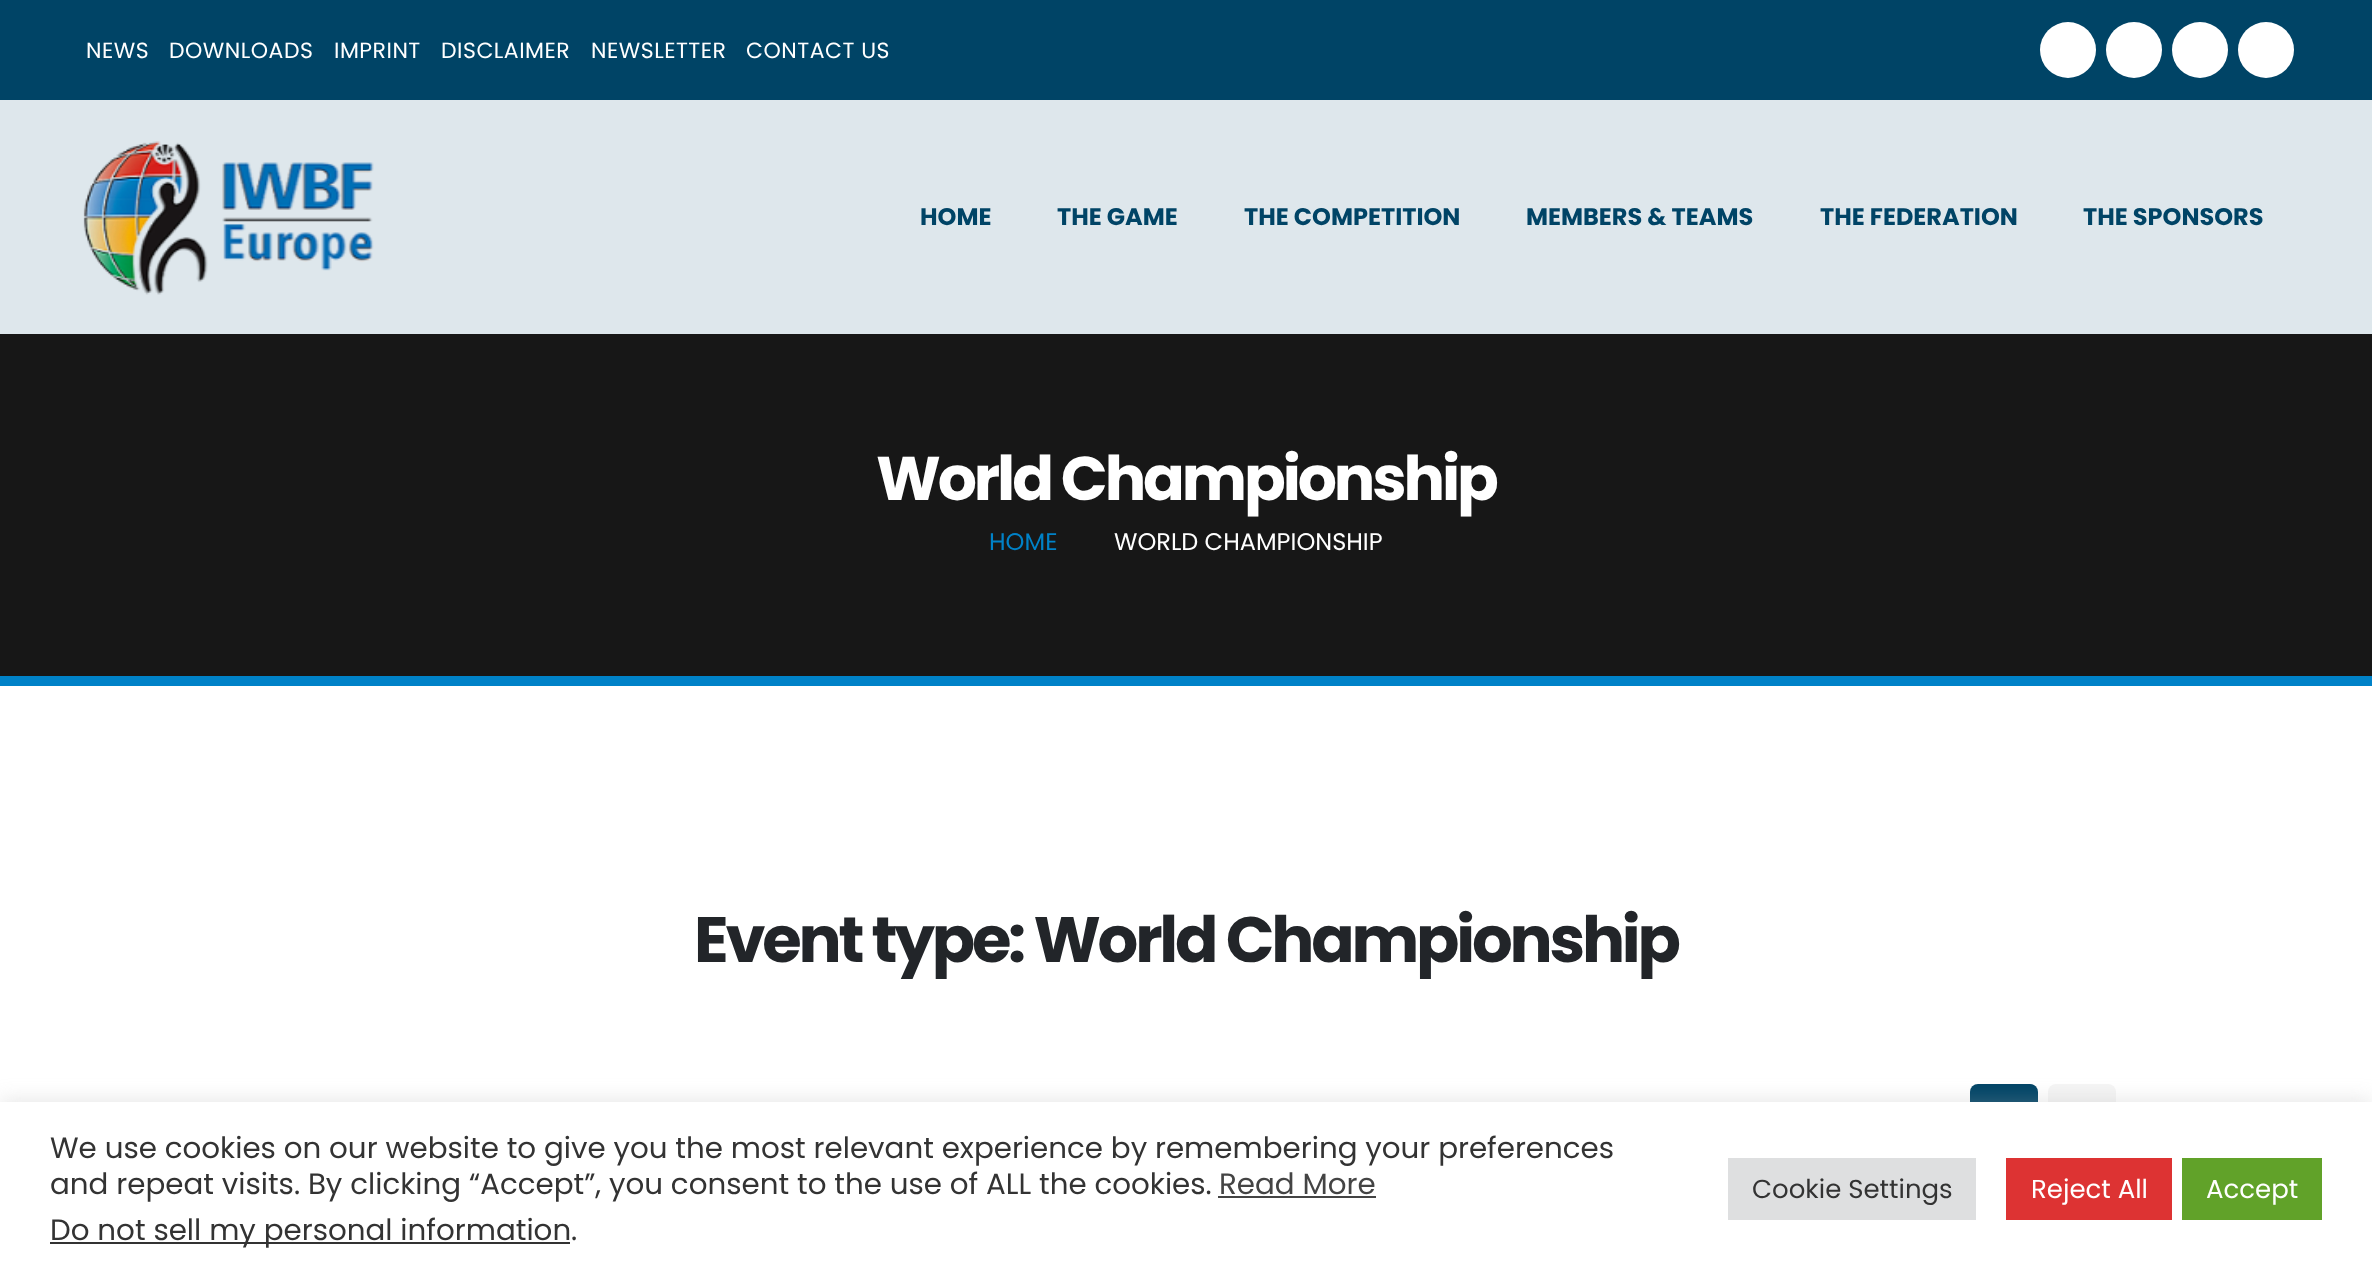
<svg xmlns="http://www.w3.org/2000/svg" width="2372" height="1276" viewBox="0 0 2372 1276">
  <rect width="100%" height="100%" fill="rgb(255,255,255)"/>
  <rect x="0" y="0" width="2372" height="100" fill="rgb(0,68,102)"/>
  <g font-family="Poppins" font-size="22" letter-spacing="0.5" fill="rgb(255,255,255)">
    <text x="86" y="58">NEWS</text>
    <text x="169" y="58">DOWNLOADS</text>
    <text x="334" y="58">IMPRINT</text>
    <text x="441" y="58">DISCLAIMER</text>
    <text x="591" y="58">NEWSLETTER</text>
    <text x="746" y="58">CONTACT US</text>
  </g>
  <circle cx="2068" cy="50" r="28" fill="rgb(255,255,255)"/>
  <circle cx="2134" cy="50" r="28" fill="rgb(255,255,255)"/>
  <circle cx="2200" cy="50" r="28" fill="rgb(255,255,255)"/>
  <circle cx="2266" cy="50" r="28" fill="rgb(255,255,255)"/>
  <rect x="0" y="100" width="2372" height="234" fill="rgb(222,231,236)"/>
  <image x="83" y="141" width="291" height="154" href="pic1.png"/>
  <g font-family="Poppins" font-size="24" font-weight="bold" fill="rgb(0,68,102)">
    <text x="920" y="225">HOME</text>
    <text x="1057" y="225">THE GAME</text>
    <text x="1244" y="225">THE COMPETITION</text>
    <text x="1526" y="225">MEMBERS &amp; TEAMS</text>
    <text x="1820" y="225">THE FEDERATION</text>
    <text x="2083" y="225">THE SPONSORS</text>
  </g>
  <rect x="0" y="334" width="2372" height="342" fill="rgb(23,23,23)"/>
  <rect x="0" y="676" width="2372" height="10" fill="rgb(0,130,200)"/>
  <text x="876" y="500" font-family="Poppins" font-size="61.6" font-weight="bold" letter-spacing="-3.1" fill="rgb(255,255,255)">World Championship</text>
  <text x="989" y="550" font-family="Poppins" font-size="24" fill="rgb(0,130,200)">HOME</text>
  <text x="1114" y="550" font-family="Poppins" font-size="24" fill="rgb(255,255,255)">WORLD CHAMPIONSHIP</text>
  <text x="694" y="962" font-family="Poppins" font-size="64" font-weight="bold" letter-spacing="-3.2" fill="rgb(34,37,41)">Event type: World Championship</text>
  <rect x="1970" y="1084" width="68" height="68" rx="8" fill="rgb(0,68,102)"/>
  <rect x="2048" y="1084" width="68" height="68" rx="8" fill="rgb(245,245,245)"/>
  <rect x="0" y="1100" width="2372" height="174" fill="rgba(172,171,171,0.3)" filter="blur(10px)"/>
  <rect x="0" y="1102" width="2372" height="174" fill="rgb(255,255,255)"/>
  <g font-family="Poppins" font-size="29.33" fill="rgb(51,51,51)">
    <text>
      <tspan x="50" y="1158">We use cookies on our website to give you the most relevant experience by remembering your preferences</tspan>
      <tspan x="50" y="1194">and repeat visits. By clicking “Accept”, you consent to the use of ALL the cookies.</tspan>
    </text>
  </g>
  <text x="1219" y="1194" font-family="Poppins" font-size="29.33" fill="rgb(68,68,68)">Read More</text>
  <rect x="1218" y="1196" width="158" height="2" fill="rgb(68,68,68)"/>
  <rect x="50" y="1242" width="520" height="2" fill="rgb(51,51,51)"/>
  <g font-family="Poppins" font-size="29.33" fill="rgb(51,51,51)">
    <text x="50" y="1240">Do not sell my personal information</text>
    <text x="571" y="1240">.</text>
  </g>
  <rect x="1728" y="1158" width="248" height="62" fill="rgb(222,223,224)"/>
  <text x="1752" y="1198" font-family="Poppins" font-size="26" fill="rgb(51,51,51)">Cookie Settings</text>
  <rect x="2006" y="1158" width="166" height="62" fill="rgb(221,51,51)"/>
  <text x="2031" y="1198" font-family="Poppins" font-size="26" fill="rgb(255,255,255)">Reject All</text>
  <rect x="2182" y="1158" width="140" height="62" fill="rgb(97,162,41)"/>
  <text x="2206" y="1198" font-family="Poppins" font-size="26" fill="rgb(255,255,255)">Accept</text>
</svg>
